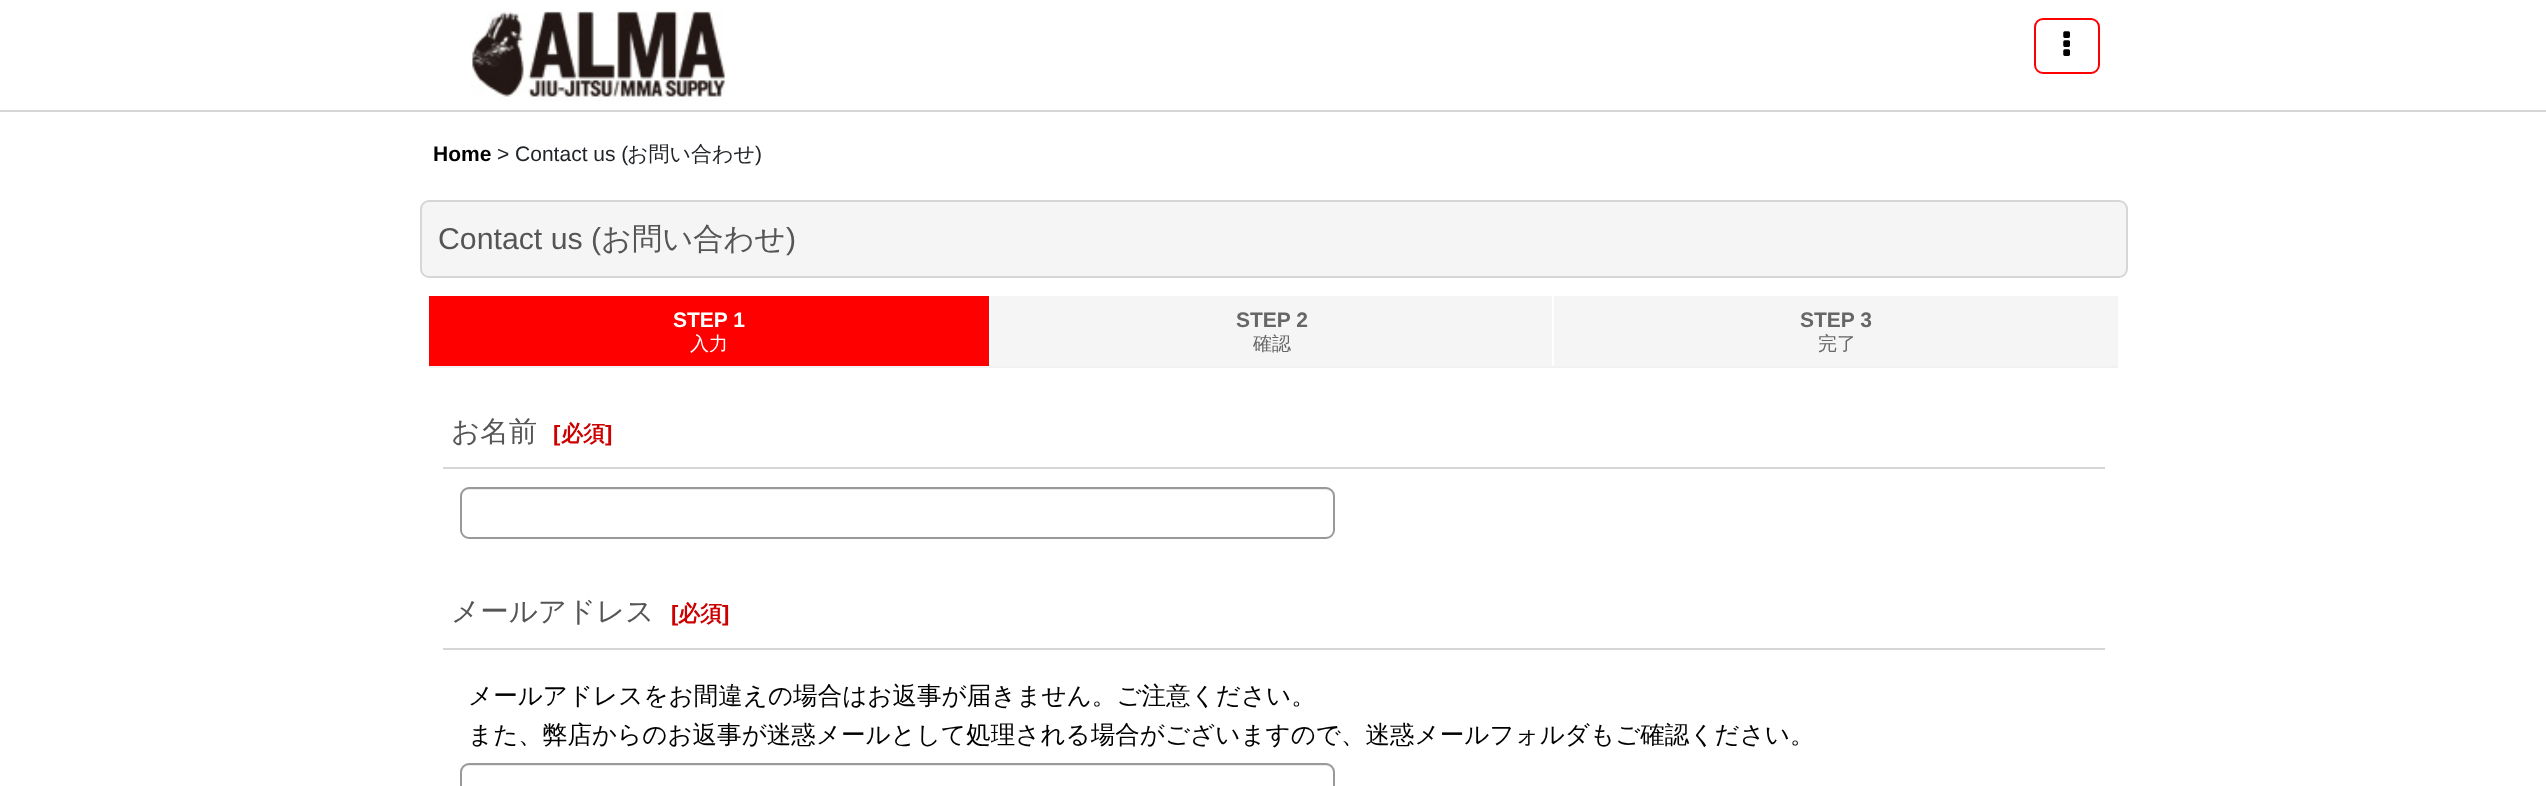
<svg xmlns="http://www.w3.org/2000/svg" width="2546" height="786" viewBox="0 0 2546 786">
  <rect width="100%" height="100%" fill="rgb(255,255,255)"/>
  <rect x="0" y="110" width="2546" height="2" fill="rgb(214,214,214)"/>
  <image x="471" y="11" width="255" height="90" href="pic1.png"/>
  <rect x="2035" y="19" width="64" height="54" rx="8" fill="none" stroke="rgb(255,0,0)" stroke-width="2"/>
  <image x="2063" y="31" width="7" height="25" href="pic2.png"/>
  <text x="433" y="161" font-family="Liberation Sans" font-size="21" font-weight="bold" fill="rgb(0,0,0)">Home</text>
  <text x="497" y="161" font-family="Liberation Sans" font-size="21" fill="rgb(33,37,41)">&gt; Contact us (</text>
  <text x="627" y="161" font-family="WenQuanYi Zen Hei" font-size="21" font-weight="500" fill="rgb(33,37,41)">お問い合わせ</text>
  <text x="755" y="161" font-family="Liberation Sans" font-size="21" fill="rgb(33,37,41)">)</text>
  <rect x="421" y="201" width="1706" height="76" rx="8" fill="rgb(245,245,245)" stroke="rgb(214,214,214)" stroke-width="2"/>
  <text x="438" y="249" font-family="Liberation Sans" font-size="30.25" fill="rgb(85,85,85)">Contact us (</text>
  <text x="601" y="249" font-family="WenQuanYi Zen Hei" font-size="30.25" font-weight="500" fill="rgb(85,85,85)">お問い合わせ</text>
  <text x="786" y="249" font-family="Liberation Sans" font-size="30.25" fill="rgb(85,85,85)">)</text>
  <rect x="429" y="296" width="560" height="70" fill="rgb(255,0,0)"/>
  <rect x="429" y="366" width="1689" height="2" fill="rgb(241,241,241)"/>
  <text x="673" y="327" font-family="Liberation Sans" font-size="21" font-weight="bold" fill="rgb(255,255,255)">STEP 1</text>
  <text x="690" y="350" font-family="WenQuanYi Zen Hei" font-size="19" font-weight="500" fill="rgb(255,255,255)">入力</text>
  <rect x="991" y="296" width="561" height="70" fill="rgb(245,245,245)"/>
  <text x="1236" y="327" font-family="Liberation Sans" font-size="21" font-weight="bold" fill="rgb(102,102,102)">STEP 2</text>
  <text x="1253" y="350" font-family="WenQuanYi Zen Hei" font-size="19" font-weight="500" fill="rgb(102,102,102)">確認</text>
  <rect x="1554" y="296" width="564" height="70" fill="rgb(245,245,245)"/>
  <text x="1800" y="327" font-family="Liberation Sans" font-size="21" font-weight="bold" fill="rgb(102,102,102)">STEP 3</text>
  <text x="1818" y="350" font-family="WenQuanYi Zen Hei" font-size="19" font-weight="500" fill="rgb(102,102,102)">完了</text>
  <rect x="443" y="467" width="1662" height="2" fill="rgb(214,214,214)"/>
  <text x="451" y="441" font-family="WenQuanYi Zen Hei" font-size="28.5" font-weight="500" fill="rgb(85,85,85)">お名前</text>
  <text x="553" y="441" font-family="Liberation Sans" font-size="22" font-weight="bold" fill="rgb(204,0,0)">[</text>
  <text x="561" y="441" font-family="WenQuanYi Zen Hei" font-size="22" font-weight="bold" fill="rgb(204,0,0)">必須</text>
  <text x="605" y="441" font-family="Liberation Sans" font-size="22" font-weight="bold" fill="rgb(204,0,0)">]</text>
  <path d="M469 490H1326C1330 490 1334 493 1334 497C1334 493 1332 488 1327 488H469C464 488 462 493 462 497C462 493 465 490 469 490Z" fill="rgb(236,236,236)"/>
  <rect x="461" y="488" width="873" height="50" rx="8" fill="none" stroke="rgb(153,153,153)" stroke-width="2"/>
  <rect x="443" y="648" width="1662" height="2" fill="rgb(214,214,214)"/>
  <text x="451" y="621" font-family="WenQuanYi Zen Hei" font-size="28.5" font-weight="500" fill="rgb(85,85,85)">メールアドレス</text>
  <text x="671" y="621" font-family="Liberation Sans" font-size="22" font-weight="bold" fill="rgb(204,0,0)">[</text>
  <text x="678" y="621" font-family="WenQuanYi Zen Hei" font-size="22" font-weight="bold" fill="rgb(204,0,0)">必須</text>
  <text x="722" y="621" font-family="Liberation Sans" font-size="22" font-weight="bold" fill="rgb(204,0,0)">]</text>
  <g font-family="WenQuanYi Zen Hei" font-size="24.57" font-weight="500" fill="rgb(0,0,0)">
    <text>
      <tspan x="468" y="704">メールアドレスをお間違えの場合はお返事が届きません。ご注意ください。</tspan>
      <tspan x="468" y="743">また、弊店からのお返事が迷惑メールとして処理される場合がございますので、迷惑メールフォルダもご確認ください。</tspan>
    </text>
  </g>
  <path d="M469 766H1326C1330 766 1334 770 1334 774C1334 770 1332 765 1327 765H469C464 765 462 770 462 774C462 770 465 766 469 766Z" fill="rgb(236,236,236)"/>
  <rect x="461" y="764" width="873" height="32" rx="8" fill="none" stroke="rgb(153,153,153)" stroke-width="2"/>
</svg>
